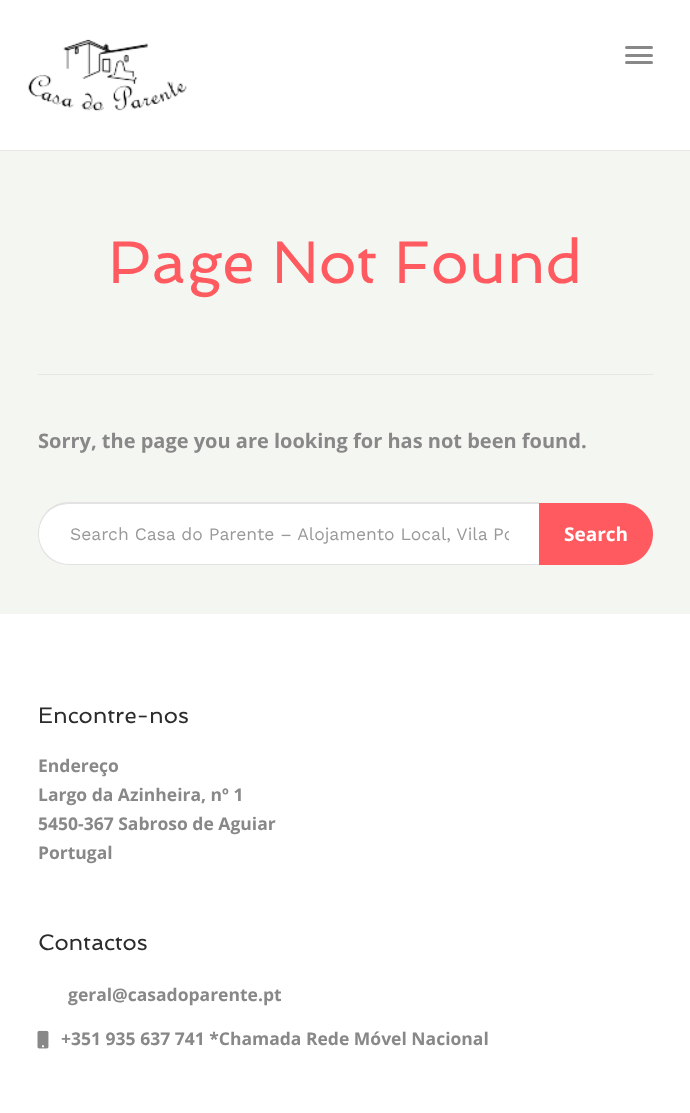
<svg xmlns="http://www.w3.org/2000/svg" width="690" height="1113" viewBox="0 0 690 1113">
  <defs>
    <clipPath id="clip1"><rect x="70" y="524" width="439" height="20"/></clipPath>
  </defs>
  <rect width="100%" height="100%" fill="rgb(244,246,242)"/>
  <rect x="0" y="0" width="690" height="150" fill="rgb(255,255,255)"/>
  <rect x="0" y="150" width="690" height="1" fill="rgb(231,231,231)"/>
  <image x="28" y="39" width="159" height="73" href="pic1.png"/>
  <rect x="625" y="46" width="28" height="3" rx="1.5" fill="rgb(136,136,136)"/>
  <rect x="625" y="54" width="28" height="3" rx="1.5" fill="rgb(136,136,136)"/>
  <rect x="625" y="61" width="28" height="3" rx="1.5" fill="rgb(136,136,136)"/>
  <rect x="38" y="374" width="615" height="1" fill="rgb(230,230,230)"/>
  <text x="108" y="283" font-family="Spinnaker" font-size="60" fill="rgb(255,90,95)">Page Not Found</text>
  <text x="38" y="448" font-family="Open Sans" font-size="20" font-weight="bold" fill="rgb(136,136,136)">Sorry, the page you are looking for has not been found.</text>
  <path d="M69 503H539V565H69C52 565 38 551 38 534C38 517 52 503 69 503Z" fill="rgb(255,255,255)"/>
  <path d="M69 502H539V565H69C51 565 38 551 38 534C38 516 51 502 69 502ZM69 504H539V564H69C52 564 39 550 39 534C39 517 52 504 69 504Z" fill="rgb(226,226,226)" fill-rule="evenodd"/>
  <g clip-path="url(#clip1)">
    <text x="70" y="540" font-family="Work Sans" font-size="17.5" fill="rgb(153,153,153)">Search Casa do Parente – Alojamento Local, Vila Po</text>
  </g>
  <path d="M539 503H622C639 503 653 517 653 534C653 551 639 565 622 565H539Z" fill="rgb(255,90,95)"/>
  <text x="564" y="541" font-family="Open Sans" font-size="19" font-weight="bold" fill="rgb(255,255,255)">Search</text>
  <rect x="0" y="614" width="690" height="499" fill="rgb(255,255,255)"/>
  <text x="38" y="723" font-family="Spinnaker" font-size="22.5" fill="rgb(44,44,44)">Encontre-nos</text>
  <g font-family="Open Sans" font-size="17.5" font-weight="bold" fill="rgb(136,136,136)">
    <text>
      <tspan x="38" y="772">Endereço</tspan>
      <tspan x="38" y="801">Largo da Azinheira, nº 1</tspan>
      <tspan x="38" y="830">5450-367 Sabroso de Aguiar</tspan>
      <tspan x="38" y="859">Portugal</tspan>
    </text>
  </g>
  <text x="38" y="950" font-family="Spinnaker" font-size="22.5" fill="rgb(44,44,44)">Contactos</text>
  <text x="68" y="1001" font-family="Open Sans" font-size="17.5" font-weight="bold" fill="rgb(136,136,136)">geral@casadoparente.pt</text>
  <image x="37" y="1030" width="12" height="19" href="pic2.png"/>
  <text x="61" y="1045" font-family="Open Sans" font-size="17.5" font-weight="bold" fill="rgb(136,136,136)">+351 935 637 741 *Chamada Rede Móvel Nacional</text>
</svg>
